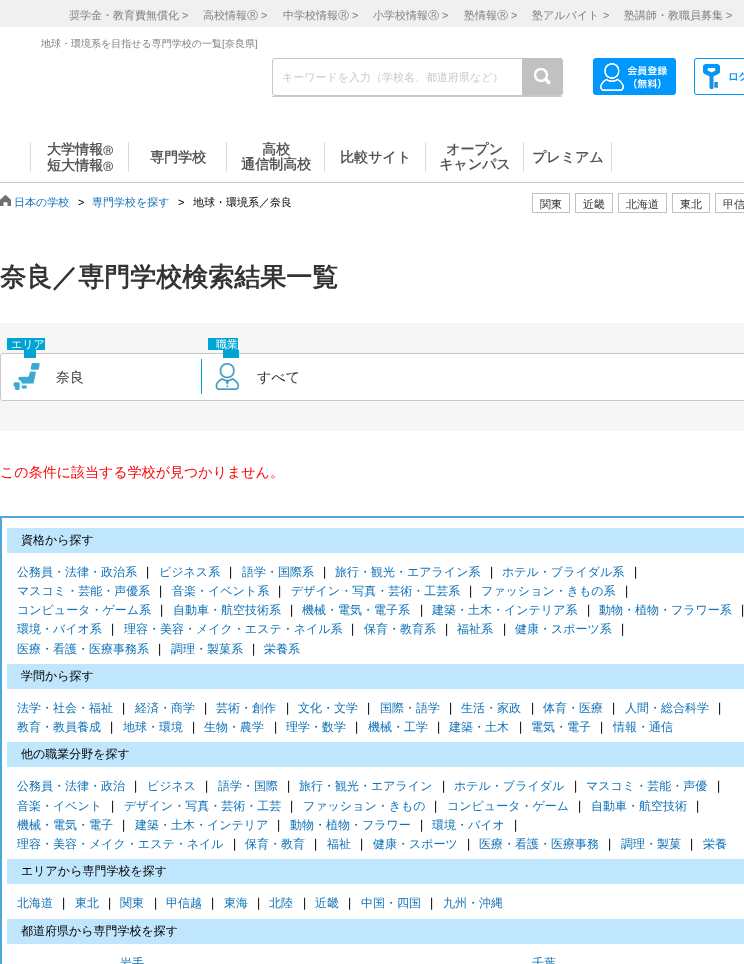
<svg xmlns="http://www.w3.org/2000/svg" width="744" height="964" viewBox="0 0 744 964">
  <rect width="100%" height="100%" fill="rgb(255,255,255)"/>
  <rect x="0" y="182" width="744" height="1" fill="rgb(199,199,199)"/>
  <rect x="0" y="0" width="744" height="27" fill="rgb(240,240,240)"/>
  <text x="69" y="19" font-family="WenQuanYi Zen Hei" font-size="11" font-weight="500" fill="rgb(128,128,128)">奨学金・教育費無償化</text>
  <text x="182" y="19" font-family="Liberation Sans" font-size="11" fill="rgb(128,128,128)">&gt;</text>
  <text x="203" y="19" font-family="WenQuanYi Zen Hei" font-size="11" font-weight="500" fill="rgb(128,128,128)">高校情報Ⓡ</text>
  <text x="261" y="19" font-family="Liberation Sans" font-size="11" fill="rgb(128,128,128)">&gt;</text>
  <text x="283" y="19" font-family="WenQuanYi Zen Hei" font-size="11" font-weight="500" fill="rgb(128,128,128)">中学校情報Ⓡ</text>
  <text x="352" y="19" font-family="Liberation Sans" font-size="11" fill="rgb(128,128,128)">&gt;</text>
  <text x="373" y="19" font-family="WenQuanYi Zen Hei" font-size="11" font-weight="500" fill="rgb(128,128,128)">小学校情報Ⓡ</text>
  <text x="442" y="19" font-family="Liberation Sans" font-size="11" fill="rgb(128,128,128)">&gt;</text>
  <text x="464" y="19" font-family="WenQuanYi Zen Hei" font-size="11" font-weight="500" fill="rgb(128,128,128)">塾情報Ⓡ</text>
  <text x="511" y="19" font-family="Liberation Sans" font-size="11" fill="rgb(128,128,128)">&gt;</text>
  <text x="532" y="19" font-family="WenQuanYi Zen Hei" font-size="11" font-weight="500" fill="rgb(128,128,128)">塾アルバイト</text>
  <text x="603" y="19" font-family="Liberation Sans" font-size="11" fill="rgb(128,128,128)">&gt;</text>
  <text x="624" y="19" font-family="WenQuanYi Zen Hei" font-size="11" font-weight="500" fill="rgb(128,128,128)">塾講師・教職員募集</text>
  <text x="726" y="19" font-family="Liberation Sans" font-size="11" fill="rgb(128,128,128)">&gt;</text>
  <text x="41" y="47" font-family="WenQuanYi Zen Hei" font-size="10" font-weight="500" fill="rgb(128,128,128)">地球・環境系を目指せる専門学校の一覧</text>
  <text x="222" y="47" font-family="Liberation Sans" font-size="10" fill="rgb(128,128,128)">[</text>
  <text x="225" y="47" font-family="WenQuanYi Zen Hei" font-size="10" font-weight="500" fill="rgb(128,128,128)">奈良県</text>
  <text x="255" y="47" font-family="Liberation Sans" font-size="10" fill="rgb(128,128,128)">]</text>
  <rect x="272.5" y="58.5" width="290" height="37" rx="2.5" fill="none" stroke="rgb(199,199,199)"/>
  <text x="282" y="81" font-family="WenQuanYi Zen Hei" font-size="11" font-weight="500" fill="rgb(201,201,201)">キーワードを入力（学校名、都道府県など）</text>
  <path d="M522 58H560C561.5 58 563 59.5 563 61V92C563 93.5 561.5 95 560 95H522Z" fill="rgb(193,193,193)"/>
  <image x="534" y="68" width="17" height="17" href="pic1.png"/>
  <rect x="272" y="96" width="290" height="1" fill="rgb(204,204,204)"/>
  <image x="593" y="58" width="83" height="37" href="pic2.png"/>
  <image x="694" y="58" width="50" height="37" href="pic3.png"/>
  <rect x="128" y="142" width="1" height="30" fill="rgb(219,219,219)"/>
  <rect x="30" y="142" width="1" height="30" fill="rgb(219,219,219)"/>
  <text x="47" y="154" font-family="WenQuanYi Zen Hei" font-size="14" font-weight="bold" fill="rgb(85,85,85)">大学情報</text>
  <text x="103" y="154" font-family="WenQuanYi Zen Hei" font-size="10" font-weight="bold" fill="rgb(85,85,85)">Ⓡ</text>
  <text x="47" y="170" font-family="WenQuanYi Zen Hei" font-size="14" font-weight="bold" fill="rgb(85,85,85)">短大情報</text>
  <text x="103" y="170" font-family="WenQuanYi Zen Hei" font-size="10" font-weight="bold" fill="rgb(85,85,85)">Ⓡ</text>
  <rect x="226" y="142" width="1" height="30" fill="rgb(219,219,219)"/>
  <text x="150" y="162" font-family="WenQuanYi Zen Hei" font-size="14" font-weight="bold" fill="rgb(85,85,85)">専門学校</text>
  <rect x="324" y="142" width="1" height="30" fill="rgb(219,219,219)"/>
  <g font-family="WenQuanYi Zen Hei" font-size="14" font-weight="bold" fill="rgb(85,85,85)">
    <text x="262" y="154">高校</text>
    <text x="241" y="169">通信制高校</text>
  </g>
  <rect x="425" y="142" width="1" height="30" fill="rgb(219,219,219)"/>
  <text x="340" y="162" font-family="WenQuanYi Zen Hei" font-size="14" font-weight="bold" fill="rgb(85,85,85)">比較サイト</text>
  <rect x="523" y="142" width="1" height="30" fill="rgb(219,219,219)"/>
  <g font-family="WenQuanYi Zen Hei" font-size="14" font-weight="bold" fill="rgb(85,85,85)">
    <text x="446" y="154">オープン</text>
    <text x="439" y="169">キャンパス</text>
  </g>
  <rect x="611" y="142" width="1" height="30" fill="rgb(219,219,219)"/>
  <text x="532" y="162" font-family="WenQuanYi Zen Hei" font-size="14" font-weight="bold" fill="rgb(85,85,85)">プレミアム</text>
  <image x="0" y="195" width="11" height="11" href="pic4.png"/>
  <text x="14" y="206" font-family="WenQuanYi Zen Hei" font-size="11" font-weight="500" fill="rgb(16,114,184)">日本の学校</text>
  <text x="78" y="206" font-family="Liberation Sans" font-size="11" fill="rgb(0,0,0)">&gt;</text>
  <text x="92" y="206" font-family="WenQuanYi Zen Hei" font-size="11" font-weight="500" fill="rgb(16,114,184)">専門学校を探す</text>
  <text x="178" y="206" font-family="Liberation Sans" font-size="11" fill="rgb(0,0,0)">&gt;</text>
  <text x="193" y="206" font-family="WenQuanYi Zen Hei" font-size="11" font-weight="500" fill="rgb(0,0,0)">地球・環境系／奈良</text>
  <rect x="532.5" y="193.5" width="37" height="19" fill="none" stroke="rgb(193,193,193)"/>
  <text x="540" y="208" font-family="WenQuanYi Zen Hei" font-size="11" font-weight="500" fill="rgb(51,51,51)">関東</text>
  <rect x="575.5" y="193.5" width="37" height="19" fill="none" stroke="rgb(193,193,193)"/>
  <text x="583" y="208" font-family="WenQuanYi Zen Hei" font-size="11" font-weight="500" fill="rgb(51,51,51)">近畿</text>
  <rect x="618.5" y="193.5" width="48" height="19" fill="none" stroke="rgb(193,193,193)"/>
  <text x="626" y="208" font-family="WenQuanYi Zen Hei" font-size="11" font-weight="500" fill="rgb(51,51,51)">北海道</text>
  <rect x="672.5" y="193.5" width="37" height="19" fill="none" stroke="rgb(193,193,193)"/>
  <text x="680" y="208" font-family="WenQuanYi Zen Hei" font-size="11" font-weight="500" fill="rgb(51,51,51)">東北</text>
  <rect x="715.5" y="193.5" width="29" height="19" fill="none" stroke="rgb(193,193,193)"/>
  <text x="723" y="208" font-family="WenQuanYi Zen Hei" font-size="11" font-weight="500" fill="rgb(51,51,51)">甲信</text>
  <text x="0" y="286" font-family="WenQuanYi Zen Hei" font-size="26" font-weight="bold" fill="rgb(51,51,51)">奈良／専門学校検索結果一覧</text>
  <rect x="0" y="323" width="744" height="108" fill="rgb(246,246,246)"/>
  <rect x="0.5" y="353.5" width="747" height="47" rx="2.5" fill="rgb(255,255,255)" stroke="rgb(199,199,199)"/>
  <image x="13" y="363" width="27" height="27" href="pic5.png"/>
  <rect x="7" y="338" width="38" height="12" fill="rgb(0,164,212)"/>
  <text x="11" y="348" font-family="WenQuanYi Zen Hei" font-size="11" font-weight="500" fill="rgb(255,255,255)">エリア</text>
  <rect x="24" y="350" width="12" height="8" fill="rgb(0,164,212)"/>
  <text x="56" y="382" font-family="WenQuanYi Zen Hei" font-size="14" font-weight="500" fill="rgb(51,51,51)">奈良</text>
  <image x="215" y="363" width="25" height="27" href="pic6.png"/>
  <rect x="201" y="359" width="1" height="35" fill="rgb(0,164,212)"/>
  <rect x="208" y="338" width="30" height="12" fill="rgb(0,164,212)"/>
  <text x="216" y="348" font-family="WenQuanYi Zen Hei" font-size="11" font-weight="500" fill="rgb(255,255,255)">職業</text>
  <rect x="223" y="350" width="16" height="8" fill="rgb(0,164,212)"/>
  <text x="257" y="382" font-family="WenQuanYi Zen Hei" font-size="14" font-weight="500" fill="rgb(51,51,51)">すべて</text>
  <text x="0" y="477" font-family="WenQuanYi Zen Hei" font-size="14" font-weight="500" fill="rgb(255,0,0)">この条件に該当する学校が見つかりません。</text>
  <rect x="1" y="517" width="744" height="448" fill="none" stroke="rgb(79,166,221)" stroke-width="2"/>
  <rect x="7" y="528" width="737" height="25" fill="rgb(191,230,253)"/>
  <text x="21" y="544" font-family="WenQuanYi Zen Hei" font-size="12" font-weight="500" fill="rgb(0,0,0)">資格から探す</text>
  <text x="17" y="576" font-family="WenQuanYi Zen Hei" font-size="12" font-weight="500" fill="rgb(16,114,184)">公務員・法律・政治系</text>
  <text x="144" y="576" font-family="DejaVu Sans Mono" font-size="12" fill="rgb(0,0,0)">|</text>
  <text x="159" y="576" font-family="WenQuanYi Zen Hei" font-size="12" font-weight="500" fill="rgb(16,114,184)">ビジネス系</text>
  <text x="227" y="576" font-family="DejaVu Sans Mono" font-size="12" fill="rgb(0,0,0)">|</text>
  <text x="242" y="576" font-family="WenQuanYi Zen Hei" font-size="12" font-weight="500" fill="rgb(16,114,184)">語学・国際系</text>
  <text x="321" y="576" font-family="DejaVu Sans Mono" font-size="12" fill="rgb(0,0,0)">|</text>
  <text x="335" y="576" font-family="WenQuanYi Zen Hei" font-size="12" font-weight="500" fill="rgb(16,114,184)">旅行・観光・エアライン系</text>
  <text x="488" y="576" font-family="DejaVu Sans Mono" font-size="12" fill="rgb(0,0,0)">|</text>
  <text x="502" y="576" font-family="WenQuanYi Zen Hei" font-size="12" font-weight="500" fill="rgb(16,114,184)">ホテル・ブライダル系</text>
  <text x="632" y="576" font-family="DejaVu Sans Mono" font-size="12" fill="rgb(0,0,0)">|</text>
  <text x="17" y="595" font-family="WenQuanYi Zen Hei" font-size="12" font-weight="500" fill="rgb(16,114,184)">マスコミ・芸能・声優系</text>
  <text x="157" y="595" font-family="DejaVu Sans Mono" font-size="12" fill="rgb(0,0,0)">|</text>
  <text x="172" y="595" font-family="WenQuanYi Zen Hei" font-size="12" font-weight="500" fill="rgb(16,114,184)">音楽・イベント系</text>
  <text x="276" y="595" font-family="DejaVu Sans Mono" font-size="12" fill="rgb(0,0,0)">|</text>
  <text x="291" y="595" font-family="WenQuanYi Zen Hei" font-size="12" font-weight="500" fill="rgb(16,114,184)">デザイン・写真・芸術・工芸系</text>
  <text x="467" y="595" font-family="DejaVu Sans Mono" font-size="12" fill="rgb(0,0,0)">|</text>
  <text x="481" y="595" font-family="WenQuanYi Zen Hei" font-size="12" font-weight="500" fill="rgb(16,114,184)">ファッション・きもの系</text>
  <text x="623" y="595" font-family="DejaVu Sans Mono" font-size="12" fill="rgb(0,0,0)">|</text>
  <text x="17" y="614" font-family="WenQuanYi Zen Hei" font-size="12" font-weight="500" fill="rgb(16,114,184)">コンピュータ・ゲーム系</text>
  <text x="158" y="614" font-family="DejaVu Sans Mono" font-size="12" fill="rgb(0,0,0)">|</text>
  <text x="173" y="614" font-family="WenQuanYi Zen Hei" font-size="12" font-weight="500" fill="rgb(16,114,184)">自動車・航空技術系</text>
  <text x="288" y="614" font-family="DejaVu Sans Mono" font-size="12" fill="rgb(0,0,0)">|</text>
  <text x="302" y="614" font-family="WenQuanYi Zen Hei" font-size="12" font-weight="500" fill="rgb(16,114,184)">機械・電気・電子系</text>
  <text x="418" y="614" font-family="DejaVu Sans Mono" font-size="12" fill="rgb(0,0,0)">|</text>
  <text x="432" y="614" font-family="WenQuanYi Zen Hei" font-size="12" font-weight="500" fill="rgb(16,114,184)">建築・土木・インテリア系</text>
  <text x="585" y="614" font-family="DejaVu Sans Mono" font-size="12" fill="rgb(0,0,0)">|</text>
  <text x="599" y="614" font-family="WenQuanYi Zen Hei" font-size="12" font-weight="500" fill="rgb(16,114,184)">動物・植物・フラワー系</text>
  <text x="739" y="614" font-family="DejaVu Sans Mono" font-size="12" fill="rgb(0,0,0)">|</text>
  <text x="17" y="633" font-family="WenQuanYi Zen Hei" font-size="12" font-weight="500" fill="rgb(16,114,184)">環境・バイオ系</text>
  <text x="109" y="633" font-family="DejaVu Sans Mono" font-size="12" fill="rgb(0,0,0)">|</text>
  <text x="124" y="633" font-family="WenQuanYi Zen Hei" font-size="12" font-weight="500" fill="rgb(16,114,184)">理容・美容・メイク・エステ・ネイル系</text>
  <text x="349" y="633" font-family="DejaVu Sans Mono" font-size="12" fill="rgb(0,0,0)">|</text>
  <text x="364" y="633" font-family="WenQuanYi Zen Hei" font-size="12" font-weight="500" fill="rgb(16,114,184)">保育・教育系</text>
  <text x="443" y="633" font-family="DejaVu Sans Mono" font-size="12" fill="rgb(0,0,0)">|</text>
  <text x="457" y="633" font-family="WenQuanYi Zen Hei" font-size="12" font-weight="500" fill="rgb(16,114,184)">福祉系</text>
  <text x="501" y="633" font-family="DejaVu Sans Mono" font-size="12" fill="rgb(0,0,0)">|</text>
  <text x="515" y="633" font-family="WenQuanYi Zen Hei" font-size="12" font-weight="500" fill="rgb(16,114,184)">健康・スポーツ系</text>
  <text x="619" y="633" font-family="DejaVu Sans Mono" font-size="12" fill="rgb(0,0,0)">|</text>
  <text x="17" y="653" font-family="WenQuanYi Zen Hei" font-size="12" font-weight="500" fill="rgb(16,114,184)">医療・看護・医療事務系</text>
  <text x="156" y="653" font-family="DejaVu Sans Mono" font-size="12" fill="rgb(0,0,0)">|</text>
  <text x="171" y="653" font-family="WenQuanYi Zen Hei" font-size="12" font-weight="500" fill="rgb(16,114,184)">調理・製菓系</text>
  <text x="250" y="653" font-family="DejaVu Sans Mono" font-size="12" fill="rgb(0,0,0)">|</text>
  <text x="264" y="653" font-family="WenQuanYi Zen Hei" font-size="12" font-weight="500" fill="rgb(16,114,184)">栄養系</text>
  <rect x="7" y="664" width="737" height="25" fill="rgb(191,230,253)"/>
  <text x="21" y="680" font-family="WenQuanYi Zen Hei" font-size="12" font-weight="500" fill="rgb(0,0,0)">学問から探す</text>
  <text x="17" y="712" font-family="WenQuanYi Zen Hei" font-size="12" font-weight="500" fill="rgb(16,114,184)">法学・社会・福祉</text>
  <text x="120" y="712" font-family="DejaVu Sans Mono" font-size="12" fill="rgb(0,0,0)">|</text>
  <text x="135" y="712" font-family="WenQuanYi Zen Hei" font-size="12" font-weight="500" fill="rgb(16,114,184)">経済・商学</text>
  <text x="202" y="712" font-family="DejaVu Sans Mono" font-size="12" fill="rgb(0,0,0)">|</text>
  <text x="216" y="712" font-family="WenQuanYi Zen Hei" font-size="12" font-weight="500" fill="rgb(16,114,184)">芸術・創作</text>
  <text x="284" y="712" font-family="DejaVu Sans Mono" font-size="12" fill="rgb(0,0,0)">|</text>
  <text x="298" y="712" font-family="WenQuanYi Zen Hei" font-size="12" font-weight="500" fill="rgb(16,114,184)">文化・文学</text>
  <text x="365" y="712" font-family="DejaVu Sans Mono" font-size="12" fill="rgb(0,0,0)">|</text>
  <text x="380" y="712" font-family="WenQuanYi Zen Hei" font-size="12" font-weight="500" fill="rgb(16,114,184)">国際・語学</text>
  <text x="447" y="712" font-family="DejaVu Sans Mono" font-size="12" fill="rgb(0,0,0)">|</text>
  <text x="461" y="712" font-family="WenQuanYi Zen Hei" font-size="12" font-weight="500" fill="rgb(16,114,184)">生活・家政</text>
  <text x="529" y="712" font-family="DejaVu Sans Mono" font-size="12" fill="rgb(0,0,0)">|</text>
  <text x="543" y="712" font-family="WenQuanYi Zen Hei" font-size="12" font-weight="500" fill="rgb(16,114,184)">体育・医療</text>
  <text x="610" y="712" font-family="DejaVu Sans Mono" font-size="12" fill="rgb(0,0,0)">|</text>
  <text x="625" y="712" font-family="WenQuanYi Zen Hei" font-size="12" font-weight="500" fill="rgb(16,114,184)">人間・総合科学</text>
  <text x="716" y="712" font-family="DejaVu Sans Mono" font-size="12" fill="rgb(0,0,0)">|</text>
  <text x="17" y="731" font-family="WenQuanYi Zen Hei" font-size="12" font-weight="500" fill="rgb(16,114,184)">教育・教員養成</text>
  <text x="108" y="731" font-family="DejaVu Sans Mono" font-size="12" fill="rgb(0,0,0)">|</text>
  <text x="123" y="731" font-family="WenQuanYi Zen Hei" font-size="12" font-weight="500" fill="rgb(16,114,184)">地球・環境</text>
  <text x="190" y="731" font-family="DejaVu Sans Mono" font-size="12" fill="rgb(0,0,0)">|</text>
  <text x="204" y="731" font-family="WenQuanYi Zen Hei" font-size="12" font-weight="500" fill="rgb(16,114,184)">生物・農学</text>
  <text x="272" y="731" font-family="DejaVu Sans Mono" font-size="12" fill="rgb(0,0,0)">|</text>
  <text x="286" y="731" font-family="WenQuanYi Zen Hei" font-size="12" font-weight="500" fill="rgb(16,114,184)">理学・数学</text>
  <text x="353" y="731" font-family="DejaVu Sans Mono" font-size="12" fill="rgb(0,0,0)">|</text>
  <text x="368" y="731" font-family="WenQuanYi Zen Hei" font-size="12" font-weight="500" fill="rgb(16,114,184)">機械・工学</text>
  <text x="435" y="731" font-family="DejaVu Sans Mono" font-size="12" fill="rgb(0,0,0)">|</text>
  <text x="449" y="731" font-family="WenQuanYi Zen Hei" font-size="12" font-weight="500" fill="rgb(16,114,184)">建築・土木</text>
  <text x="517" y="731" font-family="DejaVu Sans Mono" font-size="12" fill="rgb(0,0,0)">|</text>
  <text x="531" y="731" font-family="WenQuanYi Zen Hei" font-size="12" font-weight="500" fill="rgb(16,114,184)">電気・電子</text>
  <text x="598" y="731" font-family="DejaVu Sans Mono" font-size="12" fill="rgb(0,0,0)">|</text>
  <text x="613" y="731" font-family="WenQuanYi Zen Hei" font-size="12" font-weight="500" fill="rgb(16,114,184)">情報・通信</text>
  <rect x="7" y="742" width="737" height="25" fill="rgb(191,230,253)"/>
  <text x="21" y="758" font-family="WenQuanYi Zen Hei" font-size="12" font-weight="500" fill="rgb(0,0,0)">他の職業分野を探す</text>
  <text x="17" y="790" font-family="WenQuanYi Zen Hei" font-size="12" font-weight="500" fill="rgb(16,114,184)">公務員・法律・政治</text>
  <text x="132" y="790" font-family="DejaVu Sans Mono" font-size="12" fill="rgb(0,0,0)">|</text>
  <text x="147" y="790" font-family="WenQuanYi Zen Hei" font-size="12" font-weight="500" fill="rgb(16,114,184)">ビジネス</text>
  <text x="203" y="790" font-family="DejaVu Sans Mono" font-size="12" fill="rgb(0,0,0)">|</text>
  <text x="218" y="790" font-family="WenQuanYi Zen Hei" font-size="12" font-weight="500" fill="rgb(16,114,184)">語学・国際</text>
  <text x="285" y="790" font-family="DejaVu Sans Mono" font-size="12" fill="rgb(0,0,0)">|</text>
  <text x="299" y="790" font-family="WenQuanYi Zen Hei" font-size="12" font-weight="500" fill="rgb(16,114,184)">旅行・観光・エアライン</text>
  <text x="440" y="790" font-family="DejaVu Sans Mono" font-size="12" fill="rgb(0,0,0)">|</text>
  <text x="454" y="790" font-family="WenQuanYi Zen Hei" font-size="12" font-weight="500" fill="rgb(16,114,184)">ホテル・ブライダル</text>
  <text x="572" y="790" font-family="DejaVu Sans Mono" font-size="12" fill="rgb(0,0,0)">|</text>
  <text x="586" y="790" font-family="WenQuanYi Zen Hei" font-size="12" font-weight="500" fill="rgb(16,114,184)">マスコミ・芸能・声優</text>
  <text x="715" y="790" font-family="DejaVu Sans Mono" font-size="12" fill="rgb(0,0,0)">|</text>
  <text x="17" y="810" font-family="WenQuanYi Zen Hei" font-size="12" font-weight="500" fill="rgb(16,114,184)">音楽・イベント</text>
  <text x="109" y="810" font-family="DejaVu Sans Mono" font-size="12" fill="rgb(0,0,0)">|</text>
  <text x="124" y="810" font-family="WenQuanYi Zen Hei" font-size="12" font-weight="500" fill="rgb(16,114,184)">デザイン・写真・芸術・工芸</text>
  <text x="288" y="810" font-family="DejaVu Sans Mono" font-size="12" fill="rgb(0,0,0)">|</text>
  <text x="303" y="810" font-family="WenQuanYi Zen Hei" font-size="12" font-weight="500" fill="rgb(16,114,184)">ファッション・きもの</text>
  <text x="432" y="810" font-family="DejaVu Sans Mono" font-size="12" fill="rgb(0,0,0)">|</text>
  <text x="447" y="810" font-family="WenQuanYi Zen Hei" font-size="12" font-weight="500" fill="rgb(16,114,184)">コンピュータ・ゲーム</text>
  <text x="576" y="810" font-family="DejaVu Sans Mono" font-size="12" fill="rgb(0,0,0)">|</text>
  <text x="591" y="810" font-family="WenQuanYi Zen Hei" font-size="12" font-weight="500" fill="rgb(16,114,184)">自動車・航空技術</text>
  <text x="694" y="810" font-family="DejaVu Sans Mono" font-size="12" fill="rgb(0,0,0)">|</text>
  <text x="17" y="829" font-family="WenQuanYi Zen Hei" font-size="12" font-weight="500" fill="rgb(16,114,184)">機械・電気・電子</text>
  <text x="120" y="829" font-family="DejaVu Sans Mono" font-size="12" fill="rgb(0,0,0)">|</text>
  <text x="135" y="829" font-family="WenQuanYi Zen Hei" font-size="12" font-weight="500" fill="rgb(16,114,184)">建築・土木・インテリア</text>
  <text x="275" y="829" font-family="DejaVu Sans Mono" font-size="12" fill="rgb(0,0,0)">|</text>
  <text x="290" y="829" font-family="WenQuanYi Zen Hei" font-size="12" font-weight="500" fill="rgb(16,114,184)">動物・植物・フラワー</text>
  <text x="418" y="829" font-family="DejaVu Sans Mono" font-size="12" fill="rgb(0,0,0)">|</text>
  <text x="432" y="829" font-family="WenQuanYi Zen Hei" font-size="12" font-weight="500" fill="rgb(16,114,184)">環境・バイオ</text>
  <text x="512" y="829" font-family="DejaVu Sans Mono" font-size="12" fill="rgb(0,0,0)">|</text>
  <text x="17" y="848" font-family="WenQuanYi Zen Hei" font-size="12" font-weight="500" fill="rgb(16,114,184)">理容・美容・メイク・エステ・ネイル</text>
  <text x="231" y="848" font-family="DejaVu Sans Mono" font-size="12" fill="rgb(0,0,0)">|</text>
  <text x="245" y="848" font-family="WenQuanYi Zen Hei" font-size="12" font-weight="500" fill="rgb(16,114,184)">保育・教育</text>
  <text x="312" y="848" font-family="DejaVu Sans Mono" font-size="12" fill="rgb(0,0,0)">|</text>
  <text x="327" y="848" font-family="WenQuanYi Zen Hei" font-size="12" font-weight="500" fill="rgb(16,114,184)">福祉</text>
  <text x="358" y="848" font-family="DejaVu Sans Mono" font-size="12" fill="rgb(0,0,0)">|</text>
  <text x="373" y="848" font-family="WenQuanYi Zen Hei" font-size="12" font-weight="500" fill="rgb(16,114,184)">健康・スポーツ</text>
  <text x="465" y="848" font-family="DejaVu Sans Mono" font-size="12" fill="rgb(0,0,0)">|</text>
  <text x="479" y="848" font-family="WenQuanYi Zen Hei" font-size="12" font-weight="500" fill="rgb(16,114,184)">医療・看護・医療事務</text>
  <text x="606" y="848" font-family="DejaVu Sans Mono" font-size="12" fill="rgb(0,0,0)">|</text>
  <text x="621" y="848" font-family="WenQuanYi Zen Hei" font-size="12" font-weight="500" fill="rgb(16,114,184)">調理・製菓</text>
  <text x="688" y="848" font-family="DejaVu Sans Mono" font-size="12" fill="rgb(0,0,0)">|</text>
  <text x="703" y="848" font-family="WenQuanYi Zen Hei" font-size="12" font-weight="500" fill="rgb(16,114,184)">栄養</text>
  <rect x="7" y="859" width="737" height="25" fill="rgb(191,230,253)"/>
  <text x="21" y="875" font-family="WenQuanYi Zen Hei" font-size="12" font-weight="500" fill="rgb(0,0,0)">エリアから専門学校を探す</text>
  <text x="17" y="907" font-family="WenQuanYi Zen Hei" font-size="12" font-weight="500" fill="rgb(16,114,184)">北海道</text>
  <text x="60" y="907" font-family="DejaVu Sans Mono" font-size="12" fill="rgb(0,0,0)">|</text>
  <text x="75" y="907" font-family="WenQuanYi Zen Hei" font-size="12" font-weight="500" fill="rgb(16,114,184)">東北</text>
  <text x="106" y="907" font-family="DejaVu Sans Mono" font-size="12" fill="rgb(0,0,0)">|</text>
  <text x="120" y="907" font-family="WenQuanYi Zen Hei" font-size="12" font-weight="500" fill="rgb(16,114,184)">関東</text>
  <text x="152" y="907" font-family="DejaVu Sans Mono" font-size="12" fill="rgb(0,0,0)">|</text>
  <text x="166" y="907" font-family="WenQuanYi Zen Hei" font-size="12" font-weight="500" fill="rgb(16,114,184)">甲信越</text>
  <text x="209" y="907" font-family="DejaVu Sans Mono" font-size="12" fill="rgb(0,0,0)">|</text>
  <text x="224" y="907" font-family="WenQuanYi Zen Hei" font-size="12" font-weight="500" fill="rgb(16,114,184)">東海</text>
  <text x="255" y="907" font-family="DejaVu Sans Mono" font-size="12" fill="rgb(0,0,0)">|</text>
  <text x="269" y="907" font-family="WenQuanYi Zen Hei" font-size="12" font-weight="500" fill="rgb(16,114,184)">北陸</text>
  <text x="301" y="907" font-family="DejaVu Sans Mono" font-size="12" fill="rgb(0,0,0)">|</text>
  <text x="315" y="907" font-family="WenQuanYi Zen Hei" font-size="12" font-weight="500" fill="rgb(16,114,184)">近畿</text>
  <text x="346" y="907" font-family="DejaVu Sans Mono" font-size="12" fill="rgb(0,0,0)">|</text>
  <text x="361" y="907" font-family="WenQuanYi Zen Hei" font-size="12" font-weight="500" fill="rgb(16,114,184)">中国・四国</text>
  <text x="428" y="907" font-family="DejaVu Sans Mono" font-size="12" fill="rgb(0,0,0)">|</text>
  <text x="443" y="907" font-family="WenQuanYi Zen Hei" font-size="12" font-weight="500" fill="rgb(16,114,184)">九州・沖縄</text>
  <rect x="7" y="919" width="737" height="25" fill="rgb(191,230,253)"/>
  <text x="21" y="935" font-family="WenQuanYi Zen Hei" font-size="12" font-weight="500" fill="rgb(0,0,0)">都道府県から専門学校を探す</text>
  <g font-family="WenQuanYi Zen Hei" font-size="12" font-weight="500" fill="rgb(16,114,184)">
    <text x="120" y="967">岩手</text>
    <text x="532" y="967">千葉</text>
  </g>
</svg>
